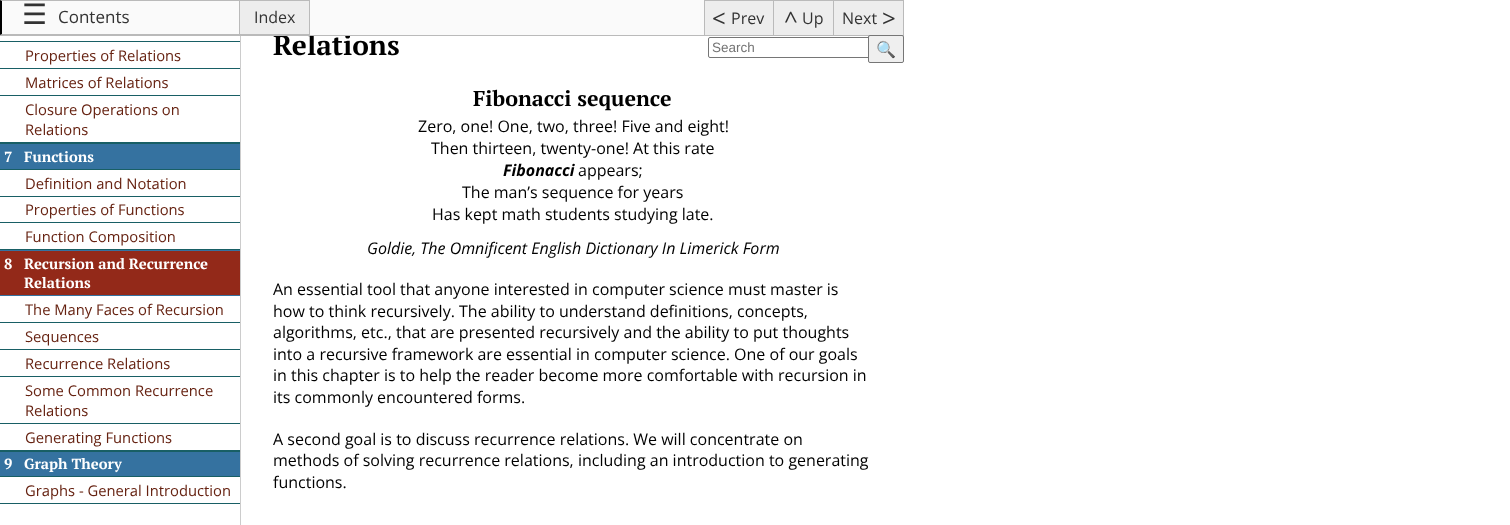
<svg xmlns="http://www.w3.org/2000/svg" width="1510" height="525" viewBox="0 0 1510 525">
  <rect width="100%" height="100%" fill="rgb(255,255,255)"/>
  <text x="273" y="55" font-family="PT Serif" font-size="28" font-weight="bold" fill="rgb(0,0,0)">Relations</text>
  <rect x="0" y="0" width="704" height="35" fill="rgb(250,250,250)"/>
  <rect x="0" y="35" width="904" height="1" fill="rgb(186,186,186)"/>
  <path d="M0 0H240L239 1H2Z" fill="rgb(186,186,186)"/>
  <rect x="239" y="0" width="1" height="35" fill="rgb(186,186,186)"/>
  <path d="M240 35H0L2 34H239Z" fill="rgb(186,186,186)"/>
  <path d="M0 35V0L2 1V34Z" fill="rgb(0,0,0)"/>
  <text x="22" y="24" font-family="DejaVu Sans" font-size="28" fill="rgb(51,51,51)">☰</text>
  <text x="58" y="23" font-family="Open Sans" font-size="17" fill="rgb(51,51,51)">Contents</text>
  <rect x="240" y="1" width="69" height="33" fill="rgb(237,237,237)"/>
  <rect x="240" y="0" width="70" height="1" fill="rgb(186,186,186)"/>
  <rect x="309" y="0" width="1" height="35" fill="rgb(186,186,186)"/>
  <rect x="240" y="34" width="70" height="1" fill="rgb(186,186,186)"/>
  <text x="254" y="23" font-family="Open Sans" font-size="16" fill="rgb(51,51,51)">Index</text>
  <rect x="705" y="1" width="68" height="34" fill="rgb(237,237,237)"/>
  <rect x="704" y="0" width="200" height="1" fill="rgb(186,186,186)"/>
  <rect x="773" y="0" width="1" height="35" fill="rgb(186,186,186)"/>
  <rect x="704" y="0" width="1" height="35" fill="rgb(186,186,186)"/>
  <text x="712" y="27" font-family="Open Sans" font-size="24" fill="rgb(51,51,51)">&lt;</text>
  <text x="731" y="24" font-family="Open Sans" font-size="16" fill="rgb(51,51,51)">Prev</text>
  <rect x="774" y="1" width="59" height="34" fill="rgb(237,237,237)"/>
  <rect x="833" y="0" width="1" height="35" fill="rgb(186,186,186)"/>
  <text x="784" y="29" font-family="Open Sans" font-size="24" fill="rgb(51,51,51)">^</text>
  <text x="802" y="24" font-family="Open Sans" font-size="16" fill="rgb(51,51,51)">Up</text>
  <rect x="834" y="1" width="69" height="34" fill="rgb(237,237,237)"/>
  <rect x="903" y="0" width="1" height="35" fill="rgb(186,186,186)"/>
  <text x="842" y="24" font-family="Open Sans" font-size="16" fill="rgb(51,51,51)">Next</text>
  <text x="882" y="27" font-family="Open Sans" font-size="24" fill="rgb(51,51,51)">&gt;</text>
  <rect x="708.5" y="37.5" width="195" height="20" rx="1.5" fill="none" stroke="rgb(118,118,118)"/>
  <text x="712" y="52" font-family="Liberation Sans" font-size="13.5" fill="rgb(117,117,117)">Search</text>
  <rect x="868.5" y="35.5" width="35" height="27" rx="1.5" fill="rgb(239,239,239)" stroke="rgb(118,118,118)"/>
  <text x="876" y="55" font-family="Noto Color Emoji" font-size="16" fill="rgb(0,0,0)">🔍</text>
  <rect x="0" y="41" width="240" height="1" fill="rgb(24,95,101)"/>
  <rect x="0" y="68" width="240" height="1" fill="rgb(24,95,101)"/>
  <text x="25" y="61" font-family="Open Sans" font-size="14.75" fill="rgb(102,34,17)">Properties of Relations</text>
  <rect x="0" y="95" width="240" height="1" fill="rgb(24,95,101)"/>
  <text x="25" y="88" font-family="Open Sans" font-size="14.75" fill="rgb(102,34,17)">Matrices of Relations</text>
  <rect x="0" y="142" width="240" height="2" fill="rgb(24,95,101)"/>
  <g font-family="Open Sans" font-size="14.75" fill="rgb(102,34,17)">
    <text>
      <tspan x="25" y="115">Closure Operations on</tspan>
      <tspan x="25" y="135">Relations</tspan>
    </text>
  </g>
  <rect x="0" y="144" width="240" height="25" fill="rgb(53,114,160)"/>
  <rect x="0" y="169" width="240" height="1" fill="rgb(24,95,101)"/>
  <g font-family="PT Serif" font-size="14.75" font-weight="bold" fill="rgb(255,255,255)">
    <text x="4" y="162">7</text>
    <text x="24" y="162">Functions</text>
  </g>
  <rect x="0" y="196" width="240" height="1" fill="rgb(24,95,101)"/>
  <text x="25" y="189" font-family="Open Sans" font-size="14.75" fill="rgb(102,34,17)">Definition and Notation</text>
  <rect x="0" y="222" width="240" height="1" fill="rgb(24,95,101)"/>
  <text x="25" y="215" font-family="Open Sans" font-size="14.75" fill="rgb(102,34,17)">Properties of Functions</text>
  <rect x="0" y="249" width="240" height="1" fill="rgb(24,95,101)"/>
  <text x="25" y="242" font-family="Open Sans" font-size="14.75" fill="rgb(102,34,17)">Function Composition</text>
  <rect x="0" y="251" width="240" height="44" fill="rgb(147,41,25)"/>
  <rect x="0" y="250" width="240" height="1" fill="rgb(53,114,160)"/>
  <rect x="0" y="295" width="240" height="1" fill="rgb(53,114,160)"/>
  <g font-family="PT Serif" font-size="14.75" font-weight="bold" fill="rgb(255,255,255)">
    <text x="4" y="269">8</text>
    <text>
      <tspan x="24" y="269">Recursion and Recurrence</tspan>
      <tspan x="24" y="288">Relations</tspan>
    </text>
  </g>
  <rect x="0" y="322" width="240" height="1" fill="rgb(24,95,101)"/>
  <text x="25" y="315" font-family="Open Sans" font-size="14.75" fill="rgb(102,34,17)">The Many Faces of Recursion</text>
  <rect x="0" y="349" width="240" height="1" fill="rgb(24,95,101)"/>
  <text x="25" y="342" font-family="Open Sans" font-size="14.75" fill="rgb(102,34,17)">Sequences</text>
  <rect x="0" y="376" width="240" height="1" fill="rgb(24,95,101)"/>
  <text x="25" y="369" font-family="Open Sans" font-size="14.75" fill="rgb(102,34,17)">Recurrence Relations</text>
  <rect x="0" y="423" width="240" height="1" fill="rgb(24,95,101)"/>
  <g font-family="Open Sans" font-size="14.75" fill="rgb(102,34,17)">
    <text>
      <tspan x="25" y="396">Some Common Recurrence</tspan>
      <tspan x="25" y="416">Relations</tspan>
    </text>
  </g>
  <rect x="0" y="450" width="240" height="2" fill="rgb(24,95,101)"/>
  <text x="25" y="443" font-family="Open Sans" font-size="14.75" fill="rgb(102,34,17)">Generating Functions</text>
  <rect x="0" y="452" width="240" height="24" fill="rgb(53,114,160)"/>
  <rect x="0" y="476" width="240" height="1" fill="rgb(24,95,101)"/>
  <g font-family="PT Serif" font-size="14.75" font-weight="bold" fill="rgb(255,255,255)">
    <text x="4" y="469">9</text>
    <text x="24" y="469">Graph Theory</text>
  </g>
  <rect x="0" y="503" width="240" height="1" fill="rgb(24,95,101)"/>
  <text x="25" y="496" font-family="Open Sans" font-size="14.75" fill="rgb(102,34,17)">Graphs - General Introduction</text>
  <rect x="240" y="36" width="1" height="489" fill="rgb(204,204,204)"/>
  <text x="473" y="106" font-family="PT Serif" font-size="21.5" font-weight="bold" fill="rgb(0,0,0)">Fibonacci sequence</text>
  <g font-family="Open Sans" font-size="16" fill="rgb(0,0,0)">
    <text x="418" y="132">Zero, one! One, two, three! Five and eight!</text>
    <text x="431" y="154">Then thirteen, twenty-one! At this rate</text>
  </g>
  <text x="503" y="176" font-family="Open Sans" font-size="16" font-weight="bold" font-style="italic" fill="rgb(0,0,0)">Fibonacci</text>
  <g font-family="Open Sans" font-size="16" fill="rgb(0,0,0)">
    <text x="578" y="176">appears;</text>
    <text x="462" y="198">The man’s sequence for years</text>
    <text x="432" y="220">Has kept math students studying late.</text>
  </g>
  <text x="367" y="254" font-family="Open Sans" font-size="16" font-style="italic" fill="rgb(0,0,0)">Goldie, The Omnificent English Dictionary In Limerick Form</text>
  <g font-family="Open Sans" font-size="16" fill="rgb(0,0,0)">
    <text>
      <tspan x="273" y="295">An essential tool that anyone interested in computer science must master is</tspan>
      <tspan x="273" y="317">how to think recursively. The ability to understand definitions, concepts,</tspan>
      <tspan x="273" y="338">algorithms, etc., that are presented recursively and the ability to put thoughts</tspan>
      <tspan x="273" y="360">into a recursive framework are essential in computer science. One of our goals</tspan>
      <tspan x="273" y="381">in this chapter is to help the reader become more comfortable with recursion in</tspan>
      <tspan x="273" y="403">its commonly encountered forms.</tspan>
    </text>
    <text>
      <tspan x="273" y="445">A second goal is to discuss recurrence relations. We will concentrate on</tspan>
      <tspan x="273" y="466">methods of solving recurrence relations, including an introduction to generating</tspan>
      <tspan x="273" y="488">functions.</tspan>
    </text>
  </g>
</svg>
